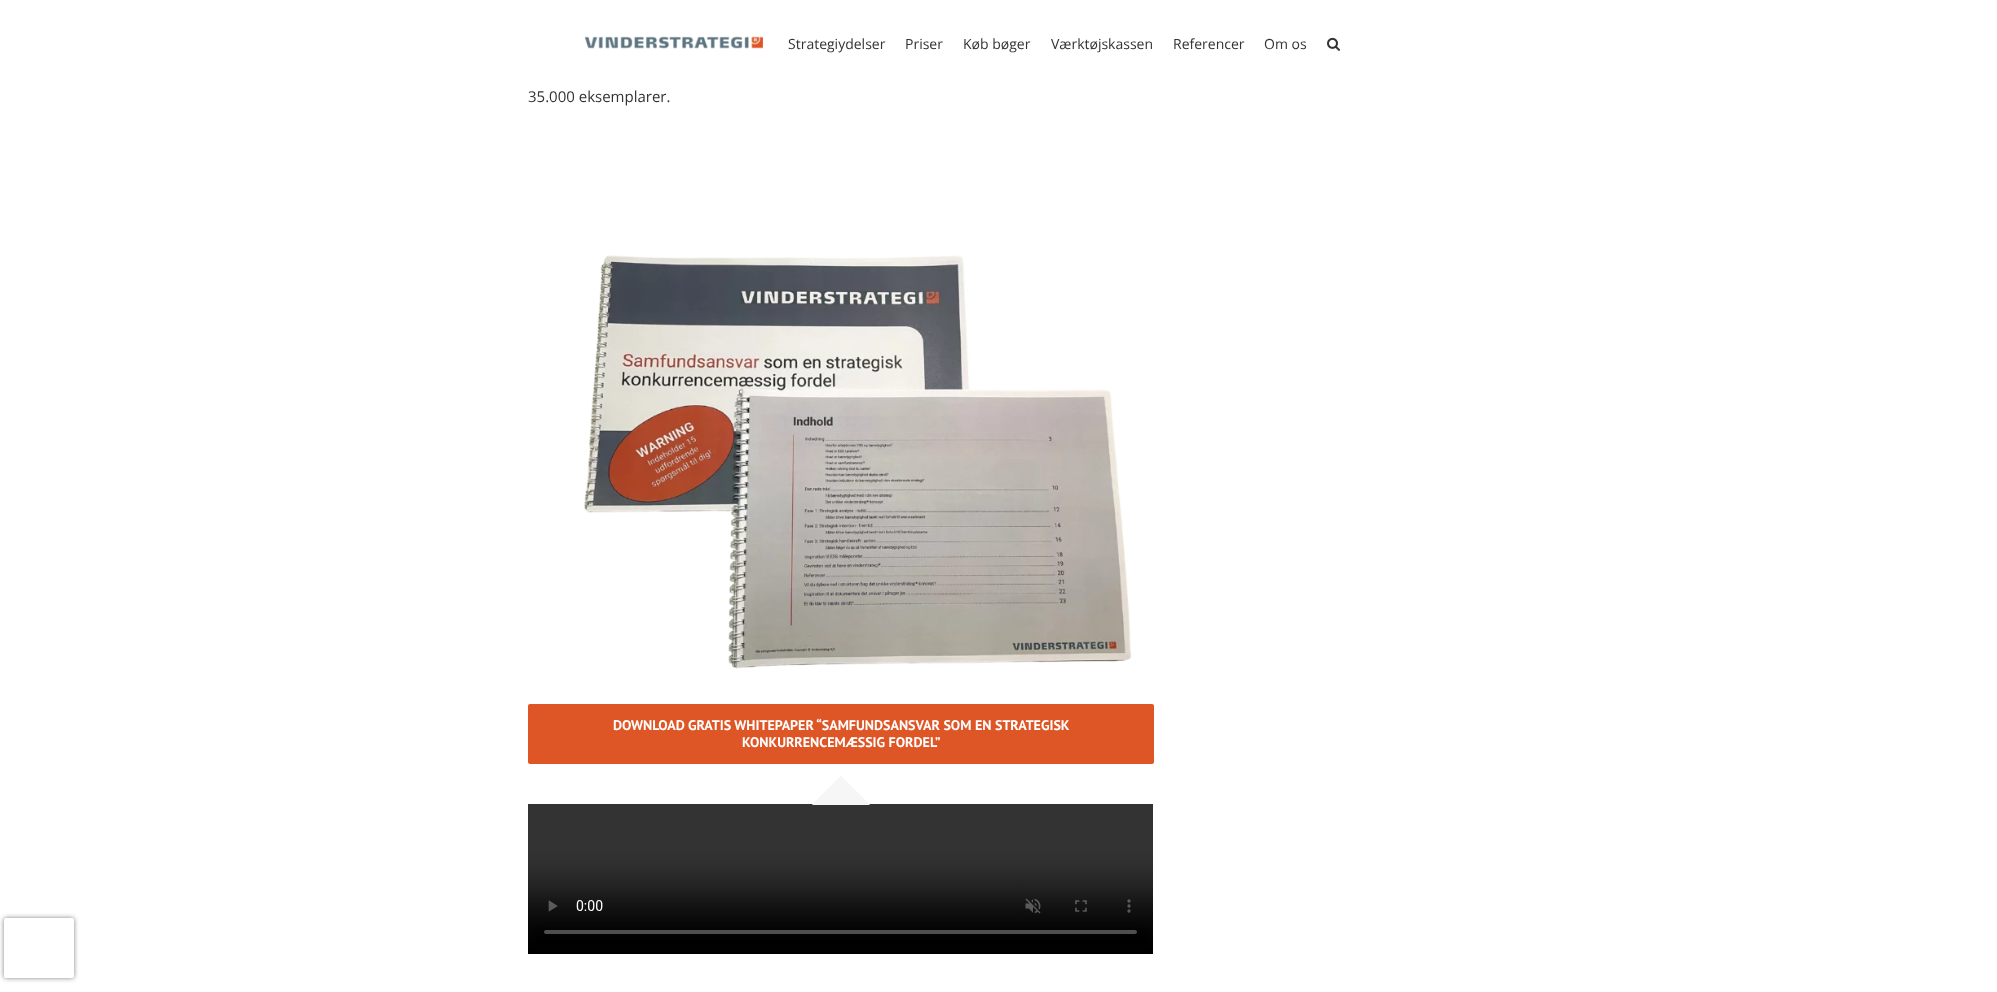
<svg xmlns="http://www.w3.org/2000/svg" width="1997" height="992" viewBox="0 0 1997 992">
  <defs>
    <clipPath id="clip1"><path d="M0 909H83V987H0ZM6 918H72C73 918 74 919 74 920V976C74 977 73 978 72 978H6C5 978 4 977 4 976V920C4 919 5 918 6 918Z" clip-rule="evenodd"/></clipPath>
  </defs>
  <rect width="100%" height="100%" fill="rgb(255,255,255)"/>
  <image x="585" y="36" width="178" height="13" href="pic1.png"/>
  <g font-family="Open Sans" font-size="14" fill="rgb(51,51,51)">
    <text x="788" y="49">Strategiydelser</text>
    <text x="905" y="49">Priser</text>
    <text x="963" y="49">Køb bøger</text>
    <text x="1051" y="49">Værktøjskassen</text>
    <text x="1173" y="49">Referencer</text>
    <text x="1264" y="49">Om os</text>
  </g>
  <image x="1327" y="37" width="13" height="14" href="pic2.png"/>
  <text x="528" y="102" font-family="Open Sans" font-size="15" fill="rgb(51,51,51)">35.000 eksemplarer.</text>
  <image x="584" y="255" width="548" height="414" href="pic3.png"/>
  <rect x="528" y="704" width="626" height="60" rx="2" fill="rgb(222,86,38)"/>
  <g font-family="PT Sans" font-size="14" font-weight="bold" fill="rgb(255,255,255)">
    <text x="613" y="730">DOWNLOAD GRATIS WHITEPAPER “SAMFUNDSANSVAR SOM EN STRATEGISK</text>
    <text x="742" y="747">KONKURRENCEMÆSSIG FORDEL”</text>
  </g>
  <image x="528" y="804" width="625" height="150" href="pic4.png"/>
  <path d="M870 805H812L841 776Z" fill="rgb(246,246,246)"/>
  <path d="M841.5 776.5L813.5 805L812.5 804L841 776Z" fill="rgb(246,246,246)"/>
  <path d="M869.5 804L868.5 805L840.5 776.5L841 776Z" fill="rgb(246,246,246)"/>
  <rect x="1153" y="804" width="1" height="1" fill="rgb(246,246,246)"/>
  <g clip-path="url(#clip1)">
    <rect x="4" y="918" width="70" height="60" rx="2" fill="rgb(128,128,128)" filter="blur(2.5px)"/>
  </g>
</svg>
